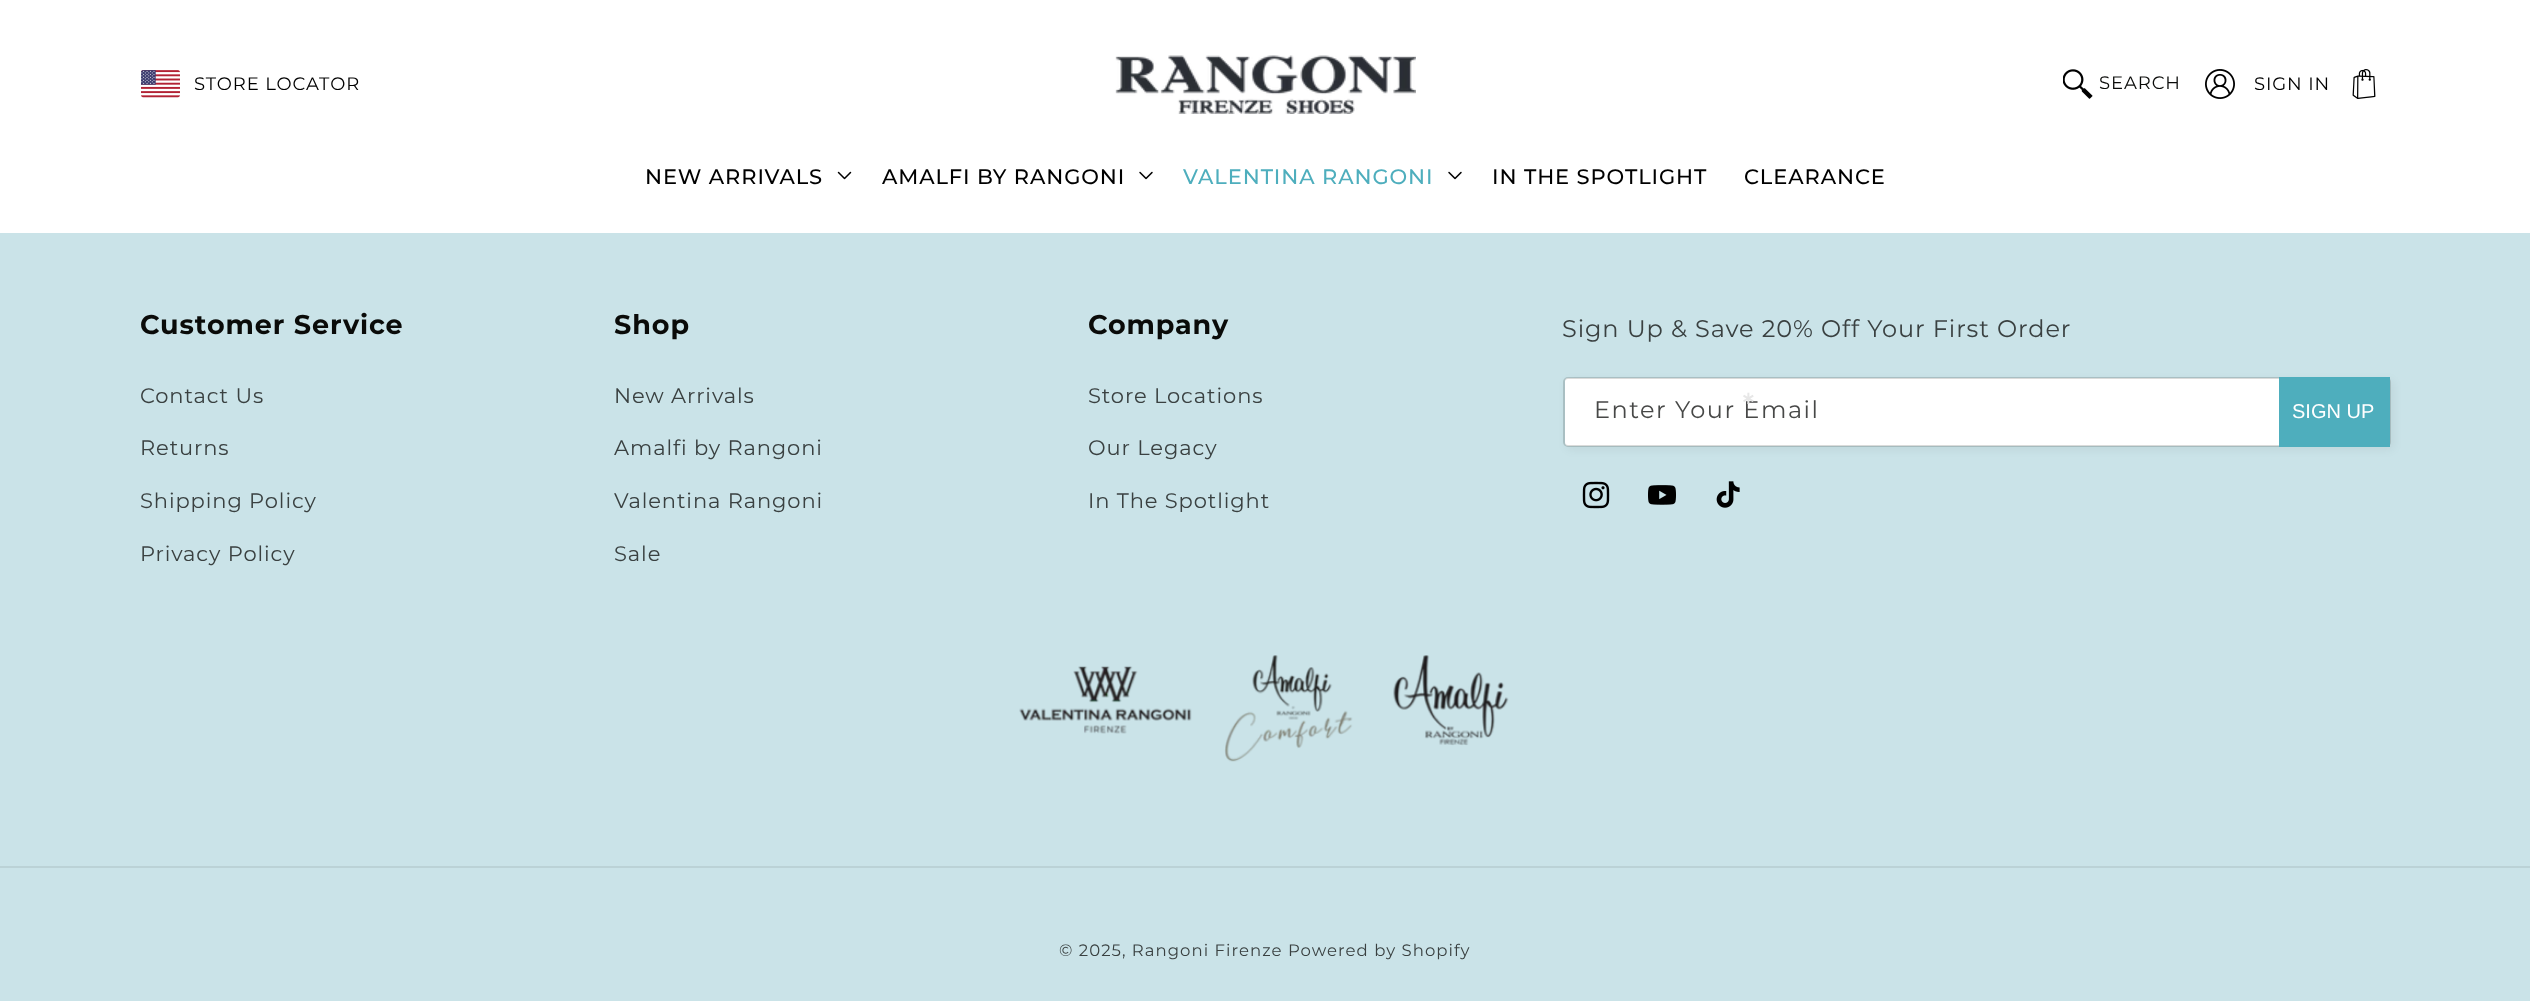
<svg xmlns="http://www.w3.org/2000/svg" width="2530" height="1001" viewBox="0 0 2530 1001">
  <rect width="100%" height="100%" fill="rgb(202,227,232)"/>
  <rect x="0" y="0" width="2530" height="233" fill="rgb(255,255,255)"/>
  <image x="141" y="70" width="39" height="28" href="pic1.png"/>
  <text x="194" y="90" font-family="Montserrat" font-size="18" letter-spacing="0.9" fill="rgb(0,0,0)">STORE LOCATOR</text>
  <image x="1115" y="55" width="301" height="59" href="pic2.png"/>
  <image x="2063" y="69" width="30" height="30" href="pic3.png"/>
  <text x="2099" y="89" font-family="Montserrat" font-size="18" letter-spacing="0.9" fill="rgb(10,11,9)">SEARCH</text>
  <image x="2205" y="69" width="30" height="30" href="pic4.png"/>
  <text x="2254" y="90" font-family="Montserrat" font-size="18" letter-spacing="0.9" fill="rgb(0,0,0)">SIGN IN</text>
  <image x="2352" y="69" width="24" height="30" href="pic5.png"/>
  <text x="645" y="184" font-family="Montserrat" font-size="21" font-weight="500" letter-spacing="0.9" fill="rgb(0,0,0)">NEW ARRIVALS</text>
  <image x="837" y="171" width="15" height="9" href="pic6.png"/>
  <text x="882" y="184" font-family="Montserrat" font-size="21" font-weight="500" letter-spacing="0.9" fill="rgb(0,0,0)">AMALFI BY RANGONI</text>
  <image x="1139" y="171" width="14" height="9" href="pic7.png"/>
  <text x="1183" y="184" font-family="Montserrat" font-size="21" font-weight="500" letter-spacing="0.9" fill="rgb(78,174,189)">VALENTINA RANGONI</text>
  <image x="1448" y="171" width="14" height="9" href="pic7.png"/>
  <g font-family="Montserrat" font-size="21" font-weight="500" letter-spacing="0.9" fill="rgb(0,0,0)">
    <text x="1492" y="184">IN THE SPOTLIGHT</text>
    <text x="1744" y="184">CLEARANCE</text>
  </g>
  <text x="140" y="334" font-family="Montserrat" font-size="27" font-weight="bold" letter-spacing="0.9" fill="rgb(10,11,9)">Customer Service</text>
  <g font-family="Montserrat" font-size="21" letter-spacing="0.9" fill="rgb(58,65,65)">
    <text x="140" y="403">Contact Us</text>
    <text x="140" y="455">Returns</text>
    <text x="140" y="508">Shipping Policy</text>
    <text x="140" y="561">Privacy Policy</text>
  </g>
  <text x="614" y="334" font-family="Montserrat" font-size="27" font-weight="bold" letter-spacing="0.9" fill="rgb(10,11,9)">Shop</text>
  <g font-family="Montserrat" font-size="21" letter-spacing="0.9" fill="rgb(58,65,65)">
    <text x="614" y="403">New Arrivals</text>
    <text x="614" y="455">Amalfi by Rangoni</text>
    <text x="614" y="508">Valentina Rangoni</text>
    <text x="614" y="561">Sale</text>
  </g>
  <text x="1088" y="334" font-family="Montserrat" font-size="27" font-weight="bold" letter-spacing="0.9" fill="rgb(10,11,9)">Company</text>
  <g font-family="Montserrat" font-size="21" letter-spacing="0.9" fill="rgb(58,65,65)">
    <text x="1088" y="403">Store Locations</text>
    <text x="1088" y="455">Our Legacy</text>
    <text x="1088" y="508">In The Spotlight</text>
  </g>
  <text x="1562" y="337" font-family="Montserrat" font-size="24" letter-spacing="0.9" fill="rgb(58,65,65)">Sign Up &amp; Save 20% Off Your First Order</text>
  <rect x="1566" y="380" width="828" height="70" rx="5" fill="rgba(0,0,0,0.05)" filter="blur(4px)"/>
  <rect x="1565" y="378" width="825" height="68" rx="3" fill="rgb(255,255,255)"/>
  <rect x="1564" y="378" width="826" height="68" rx="4" fill="none" stroke="rgba(10,11,9,0.15)" stroke-width="2"/>
  <text x="1594" y="418" font-family="Montserrat" font-size="24" letter-spacing="1.5" fill="rgb(71,72,71)">Enter Your Email</text>
  <rect x="2279" y="377" width="111" height="70" fill="rgb(78,174,189)"/>
  <text x="2292" y="418" font-family="Liberation Sans" font-size="20" fill="rgb(255,255,255)">SIGN UP</text>
  <image x="1582" y="481" width="28" height="28" href="pic8.png"/>
  <image x="1648" y="485" width="28" height="20" href="pic9.png"/>
  <image x="1716" y="481" width="24" height="27" href="pic10.png"/>
  <image x="1019" y="655" width="490" height="107" href="pic11.png"/>
  <rect x="0" y="866" width="2530" height="2" fill="rgb(187,210,214)"/>
  <text x="1059" y="956" font-family="Montserrat" font-size="16.5" letter-spacing="1.05" fill="rgb(58,65,65)">© 2025, Rangoni Firenze Powered by Shopify</text>
  <text x="1741" y="404" font-family="DejaVu Sans" font-size="17" font-weight="bold" letter-spacing="1" fill="rgb(231,231,231)">∗</text>
</svg>
